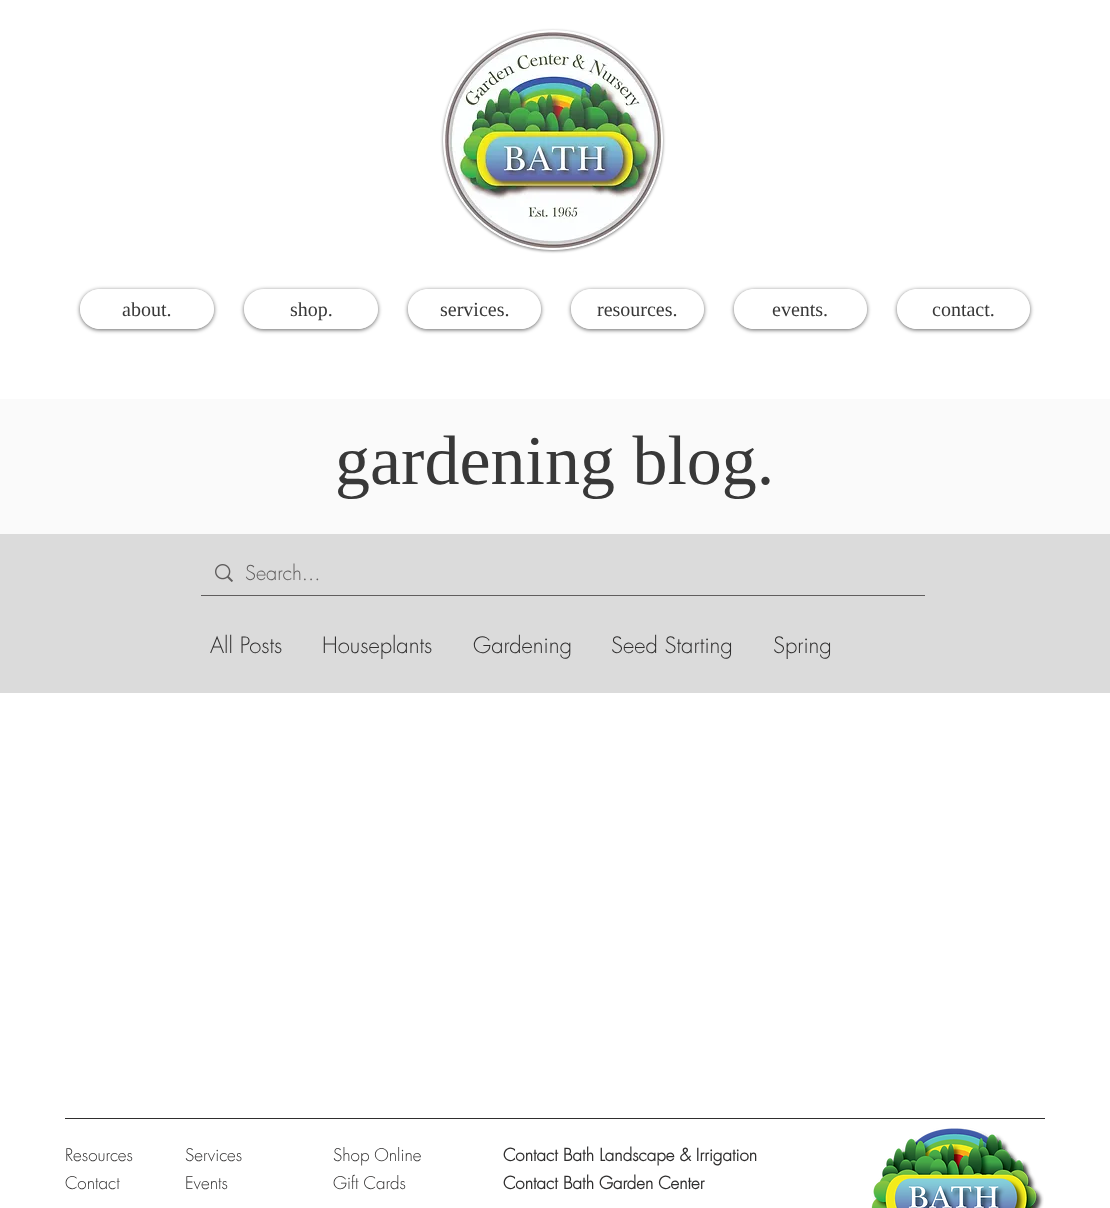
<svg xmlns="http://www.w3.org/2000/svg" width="1110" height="1208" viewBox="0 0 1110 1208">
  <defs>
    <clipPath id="clip1"><path d="M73 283H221V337H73ZM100 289H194C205 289 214 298 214 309C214 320 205 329 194 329H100C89 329 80 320 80 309C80 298 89 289 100 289Z" clip-rule="evenodd"/></clipPath>
    <clipPath id="clip2"><path d="M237 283H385V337H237ZM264 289H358C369 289 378 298 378 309C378 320 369 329 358 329H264C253 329 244 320 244 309C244 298 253 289 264 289Z" clip-rule="evenodd"/></clipPath>
    <clipPath id="clip3"><path d="M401 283H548V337H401ZM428 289H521C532 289 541 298 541 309C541 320 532 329 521 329H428C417 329 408 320 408 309C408 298 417 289 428 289Z" clip-rule="evenodd"/></clipPath>
    <clipPath id="clip4"><path d="M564 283H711V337H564ZM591 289H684C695 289 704 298 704 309C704 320 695 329 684 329H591C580 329 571 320 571 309C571 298 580 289 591 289Z" clip-rule="evenodd"/></clipPath>
    <clipPath id="clip5"><path d="M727 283H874V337H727ZM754 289H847C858 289 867 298 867 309C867 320 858 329 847 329H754C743 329 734 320 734 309C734 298 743 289 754 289Z" clip-rule="evenodd"/></clipPath>
    <clipPath id="clip6"><path d="M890 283H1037V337H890ZM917 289H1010C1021 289 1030 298 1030 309C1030 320 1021 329 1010 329H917C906 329 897 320 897 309C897 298 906 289 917 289Z" clip-rule="evenodd"/></clipPath>
  </defs>
  <rect width="100%" height="100%" fill="rgb(255,255,255)"/>
  <rect x="443" y="31" width="220" height="220" rx="110" fill="rgba(0,0,0,0.5)" filter="blur(1.5px)"/>
  <circle cx="553" cy="140" r="109.5" fill="rgb(255,255,255)" stroke="rgb(255,255,255)"/>
  <image x="444" y="32" width="218" height="216" href="pic1.png"/>
  <g clip-path="url(#clip1)">
    <rect x="80" y="290" width="134" height="40" rx="20" fill="rgba(0,0,0,0.6)" filter="blur(2px)"/>
  </g>
  <rect x="80" y="289" width="134" height="40" rx="20" fill="rgba(255,255,255,0.75)"/>
  <text x="122" y="316" font-family="Liberation Serif" font-size="20" fill="rgb(56,56,56)">about.</text>
  <g clip-path="url(#clip2)">
    <rect x="244" y="290" width="134" height="40" rx="20" fill="rgba(0,0,0,0.6)" filter="blur(2px)"/>
  </g>
  <rect x="244" y="289" width="134" height="40" rx="20" fill="rgba(255,255,255,0.75)"/>
  <text x="290" y="316" font-family="Liberation Serif" font-size="20" fill="rgb(56,56,56)">shop.</text>
  <g clip-path="url(#clip3)">
    <rect x="408" y="290" width="133" height="40" rx="20" fill="rgba(0,0,0,0.6)" filter="blur(2px)"/>
  </g>
  <rect x="408" y="289" width="133" height="40" rx="20" fill="rgba(255,255,255,0.75)"/>
  <text x="440" y="316" font-family="Liberation Serif" font-size="20" fill="rgb(56,56,56)">services.</text>
  <g clip-path="url(#clip4)">
    <rect x="571" y="290" width="133" height="40" rx="20" fill="rgba(0,0,0,0.6)" filter="blur(2px)"/>
  </g>
  <rect x="571" y="289" width="133" height="40" rx="20" fill="rgba(255,255,255,0.75)"/>
  <text x="597" y="316" font-family="Liberation Serif" font-size="20" fill="rgb(56,56,56)">resources.</text>
  <g clip-path="url(#clip5)">
    <rect x="734" y="290" width="133" height="40" rx="20" fill="rgba(0,0,0,0.6)" filter="blur(2px)"/>
  </g>
  <rect x="734" y="289" width="133" height="40" rx="20" fill="rgba(255,255,255,0.75)"/>
  <text x="772" y="316" font-family="Liberation Serif" font-size="20" fill="rgb(56,56,56)">events.</text>
  <g clip-path="url(#clip6)">
    <rect x="897" y="290" width="133" height="40" rx="20" fill="rgba(0,0,0,0.6)" filter="blur(2px)"/>
  </g>
  <rect x="897" y="289" width="133" height="40" rx="20" fill="rgba(255,255,255,0.75)"/>
  <text x="932" y="316" font-family="Liberation Serif" font-size="20" fill="rgb(56,56,56)">contact.</text>
  <rect x="0" y="399" width="1110" height="135" fill="rgb(250,250,250)"/>
  <text x="335" y="484" font-family="Liberation Serif" font-size="70" fill="rgb(56,56,56)">gardening blog.</text>
  <rect x="0" y="534" width="1110" height="159" fill="rgb(219,219,219)"/>
  <rect x="201" y="595" width="724" height="1" fill="rgb(96,94,94)"/>
  <image x="215" y="564" width="18" height="18" href="pic2.png"/>
  <text x="245" y="580" font-family="futura" font-size="20" font-weight="300" fill="rgb(96,94,94)">Search...</text>
  <g font-family="futura" font-size="22" font-weight="300" fill="rgb(47,46,46)">
    <text x="210" y="653">All Posts</text>
    <text x="322" y="653">Houseplants</text>
    <text x="473" y="653">Gardening</text>
    <text x="611" y="653">Seed Starting</text>
    <text x="773" y="653">Spring</text>
  </g>
  <rect x="65" y="1118" width="980" height="1" fill="rgb(47,46,46)"/>
  <g font-family="futura" font-size="17" font-weight="300" fill="rgb(47,46,46)">
    <text x="65" y="1161">Resources</text>
    <text x="185" y="1161">Services</text>
    <text x="333" y="1161">Shop Online</text>
  </g>
  <text x="503" y="1161" font-family="futura" font-size="17" font-weight="bold" fill="rgb(47,46,46)">Contact Bath Landscape &amp; Irrigation</text>
  <image x="871" y="1128" width="173" height="80" href="pic3.png"/>
  <g font-family="futura" font-size="17" font-weight="300" fill="rgb(47,46,46)">
    <text x="65" y="1189">Contact</text>
    <text x="185" y="1189">Events</text>
    <text x="333" y="1189">Gift Cards</text>
  </g>
  <text x="503" y="1189" font-family="futura" font-size="17" font-weight="bold" fill="rgb(47,46,46)">Contact Bath Garden Center</text>
</svg>
